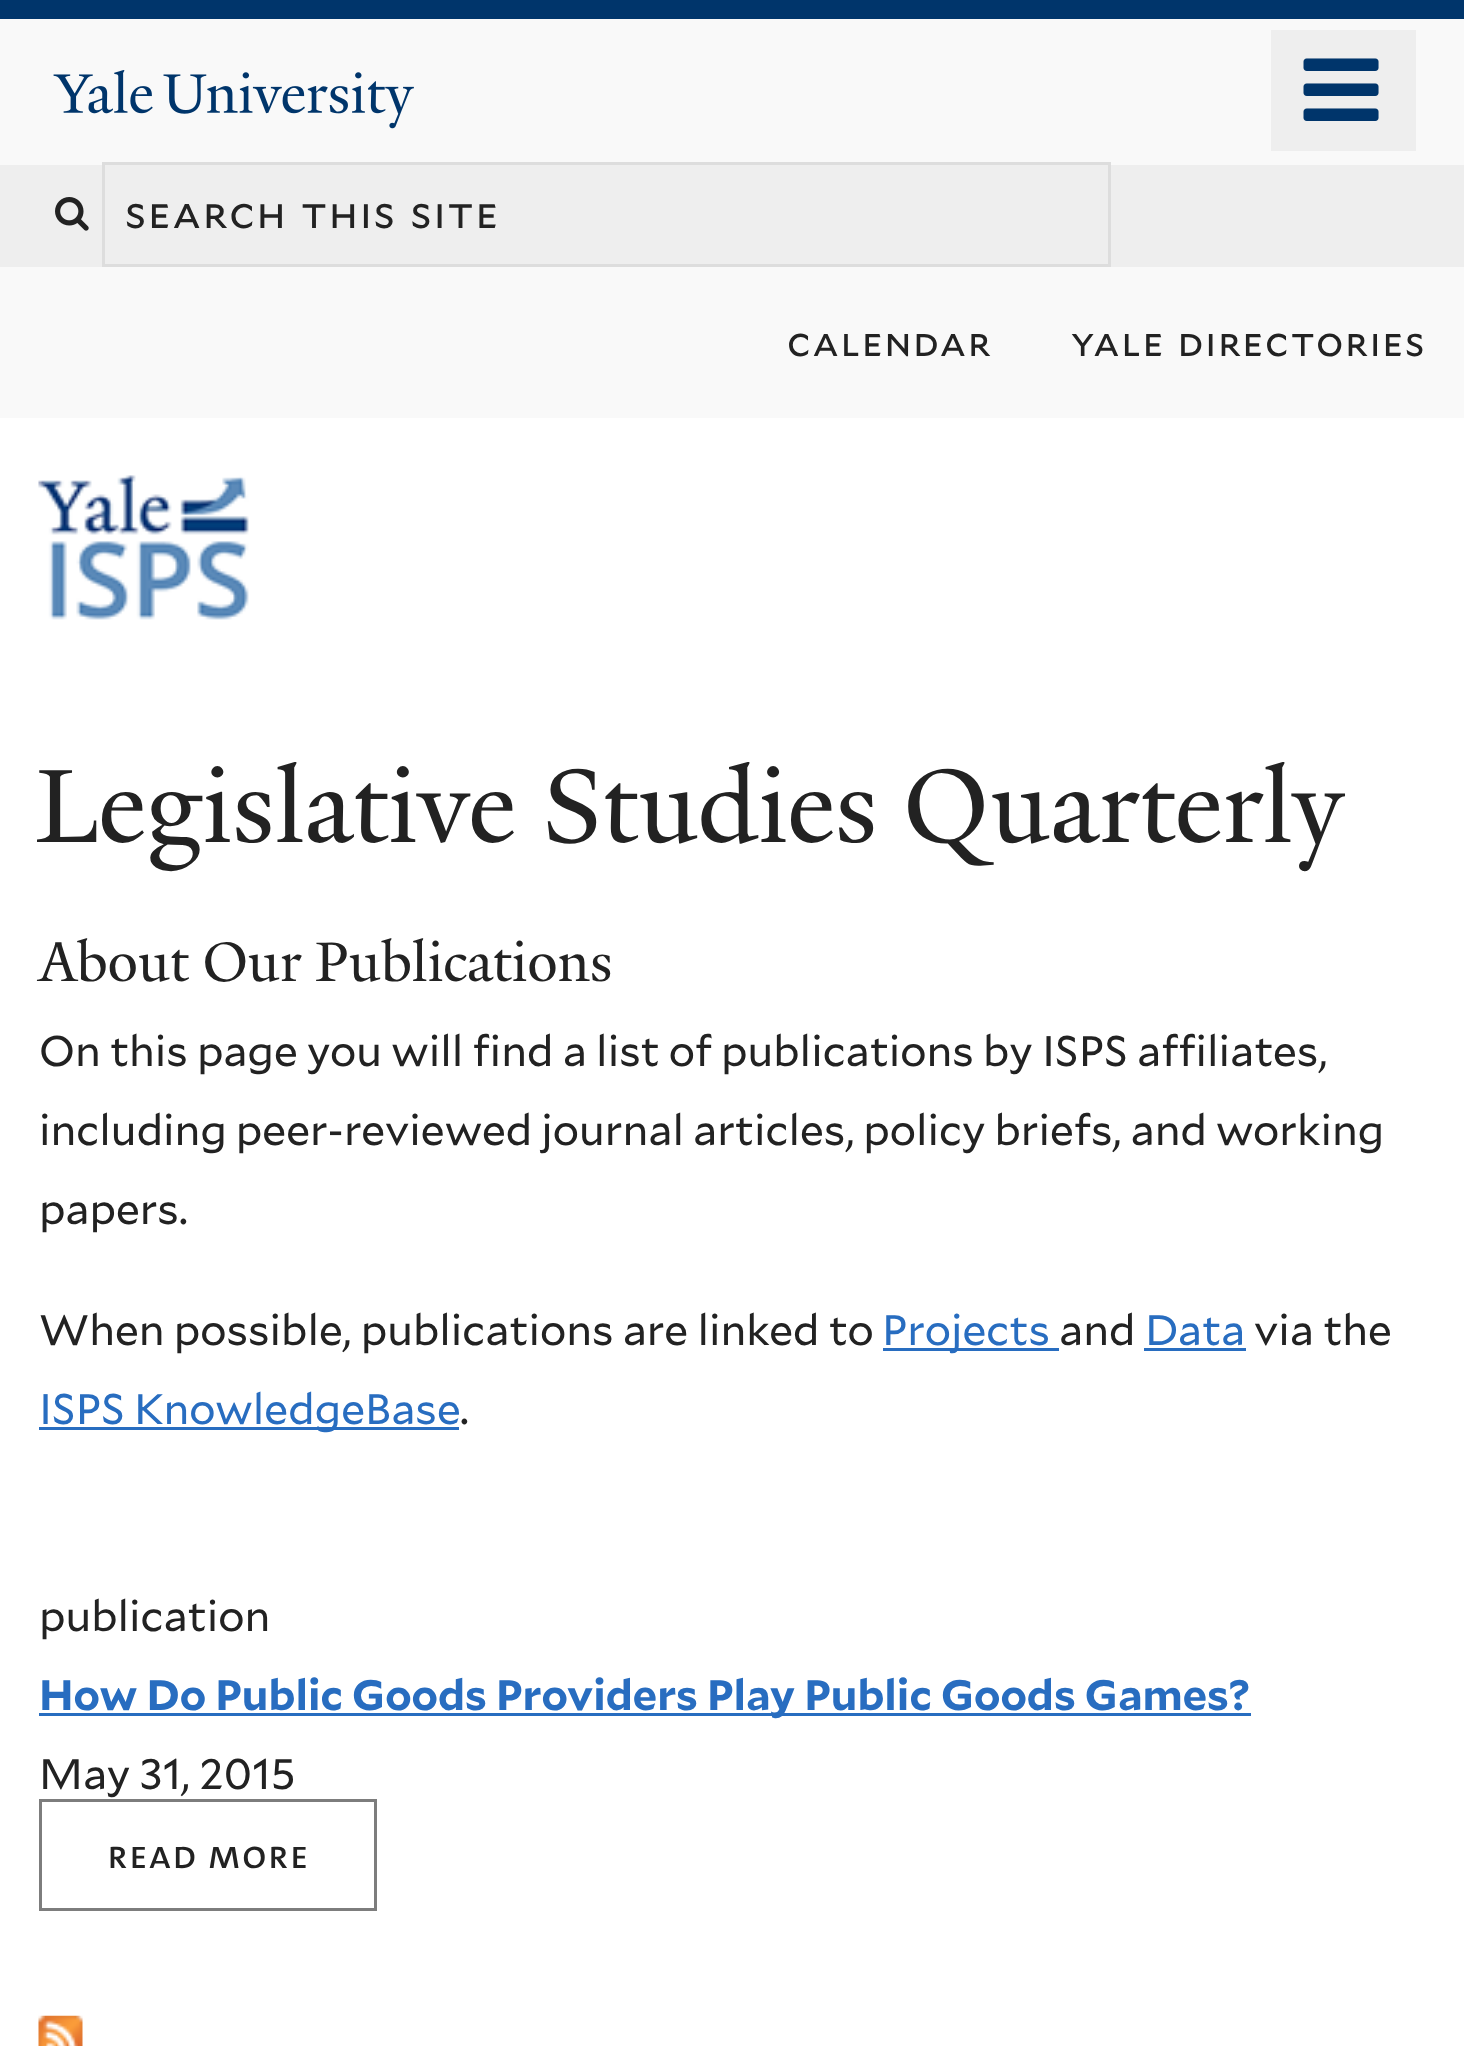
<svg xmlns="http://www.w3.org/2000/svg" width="1464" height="2046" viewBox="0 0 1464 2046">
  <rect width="100%" height="100%" fill="rgb(255,255,255)"/>
  <rect x="0" y="0" width="1464" height="19" fill="rgb(0,53,107)"/>
  <rect x="0" y="19" width="1464" height="399" fill="rgb(249,249,249)"/>
  <image x="53" y="70" width="100" height="44" href="pic1.png"/>
  <image x="163" y="72" width="251" height="57" href="pic2.png"/>
  <rect x="1271" y="30" width="145" height="121" fill="rgb(238,238,238)"/>
  <image x="1303" y="58" width="76" height="63" href="pic3.png"/>
  <rect x="0" y="165" width="1464" height="102" fill="rgb(238,238,238)"/>
  <image x="55" y="197" width="34" height="34" href="pic4.png"/>
  <rect x="103.5" y="163.5" width="1006" height="102" fill="none" stroke="rgb(221,221,221)" stroke-width="3"/>
  <text x="125" y="228" word-spacing="2" font-family="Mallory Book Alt" font-size="42.7" letter-spacing="2.1" fill="rgb(34,34,34)">search this site</text>
  <g font-family="Mallory Book Alt" font-size="39.5" letter-spacing="2" fill="rgb(34,34,34)">
    <text x="787" y="356">calendar</text>
    <text x="1071" y="356" word-spacing="2">yale directories</text>
  </g>
  <image x="38" y="475" width="211" height="145" href="pic5.png"/>
  <text x="36" y="842" font-family="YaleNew" font-size="113" fill="rgb(34,34,34)">Legislative Studies Quarterly</text>
  <text x="39" y="981" font-family="YaleNew" font-size="60.25" fill="rgb(34,34,34)">About Our Publications</text>
  <g font-family="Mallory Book" font-size="42.7" fill="rgb(34,34,34)">
    <text>
      <tspan x="39" y="1066">On this page you will find a list of publications by ISPS affiliates,</tspan>
      <tspan x="39" y="1145" word-spacing="-0.25">including peer-reviewed journal articles, policy briefs, and working</tspan>
      <tspan x="39" y="1224">papers.</tspan>
    </text>
    <text x="39" y="1345">When possible, publications are linked to</text>
  </g>
  <rect x="883" y="1348" width="176" height="3" fill="rgb(40,109,192)"/>
  <text x="882" y="1345" font-family="Mallory Book" font-size="42.7" fill="rgb(40,109,192)">Projects</text>
  <text x="1059" y="1345" font-family="Mallory Book" font-size="42.7" fill="rgb(34,34,34)">and</text>
  <text x="1145" y="1345" font-family="Mallory Book" font-size="42.7" fill="rgb(40,109,192)">Data</text>
  <rect x="1144" y="1348" width="102" height="3" fill="rgb(40,109,192)"/>
  <text x="1254" y="1345" font-family="Mallory Book" font-size="42.7" fill="rgb(34,34,34)">via the</text>
  <rect x="39" y="1427" width="420" height="3" fill="rgb(40,109,192)"/>
  <text x="39" y="1424" font-family="Mallory Book" font-size="42.7" fill="rgb(40,109,192)">ISPS KnowledgeBase</text>
  <g font-family="Mallory Book" font-size="42.7" fill="rgb(34,34,34)">
    <text x="460" y="1424">.</text>
    <text x="39" y="1631">publication</text>
  </g>
  <rect x="39" y="1713" width="1212" height="3" fill="rgb(40,109,192)"/>
  <text x="39" y="1710" word-spacing="-0.25" font-family="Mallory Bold" font-size="42.7" font-weight="bold" fill="rgb(40,109,192)">How Do Public Goods Providers Play Public Goods Games?</text>
  <text x="39" y="1789" font-family="Mallory Book" font-size="42.7" fill="rgb(34,34,34)">May 31, 2015</text>
  <rect x="40.5" y="1800.5" width="335" height="109" fill="none" stroke="rgb(125,125,125)" stroke-width="3"/>
  <text x="107" y="1868" font-family="'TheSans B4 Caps'" font-size="40.5" letter-spacing="1.25" fill="rgb(34,34,34)">read more</text>
  <image x="38" y="2015" width="45" height="31" href="pic6.png"/>
</svg>
